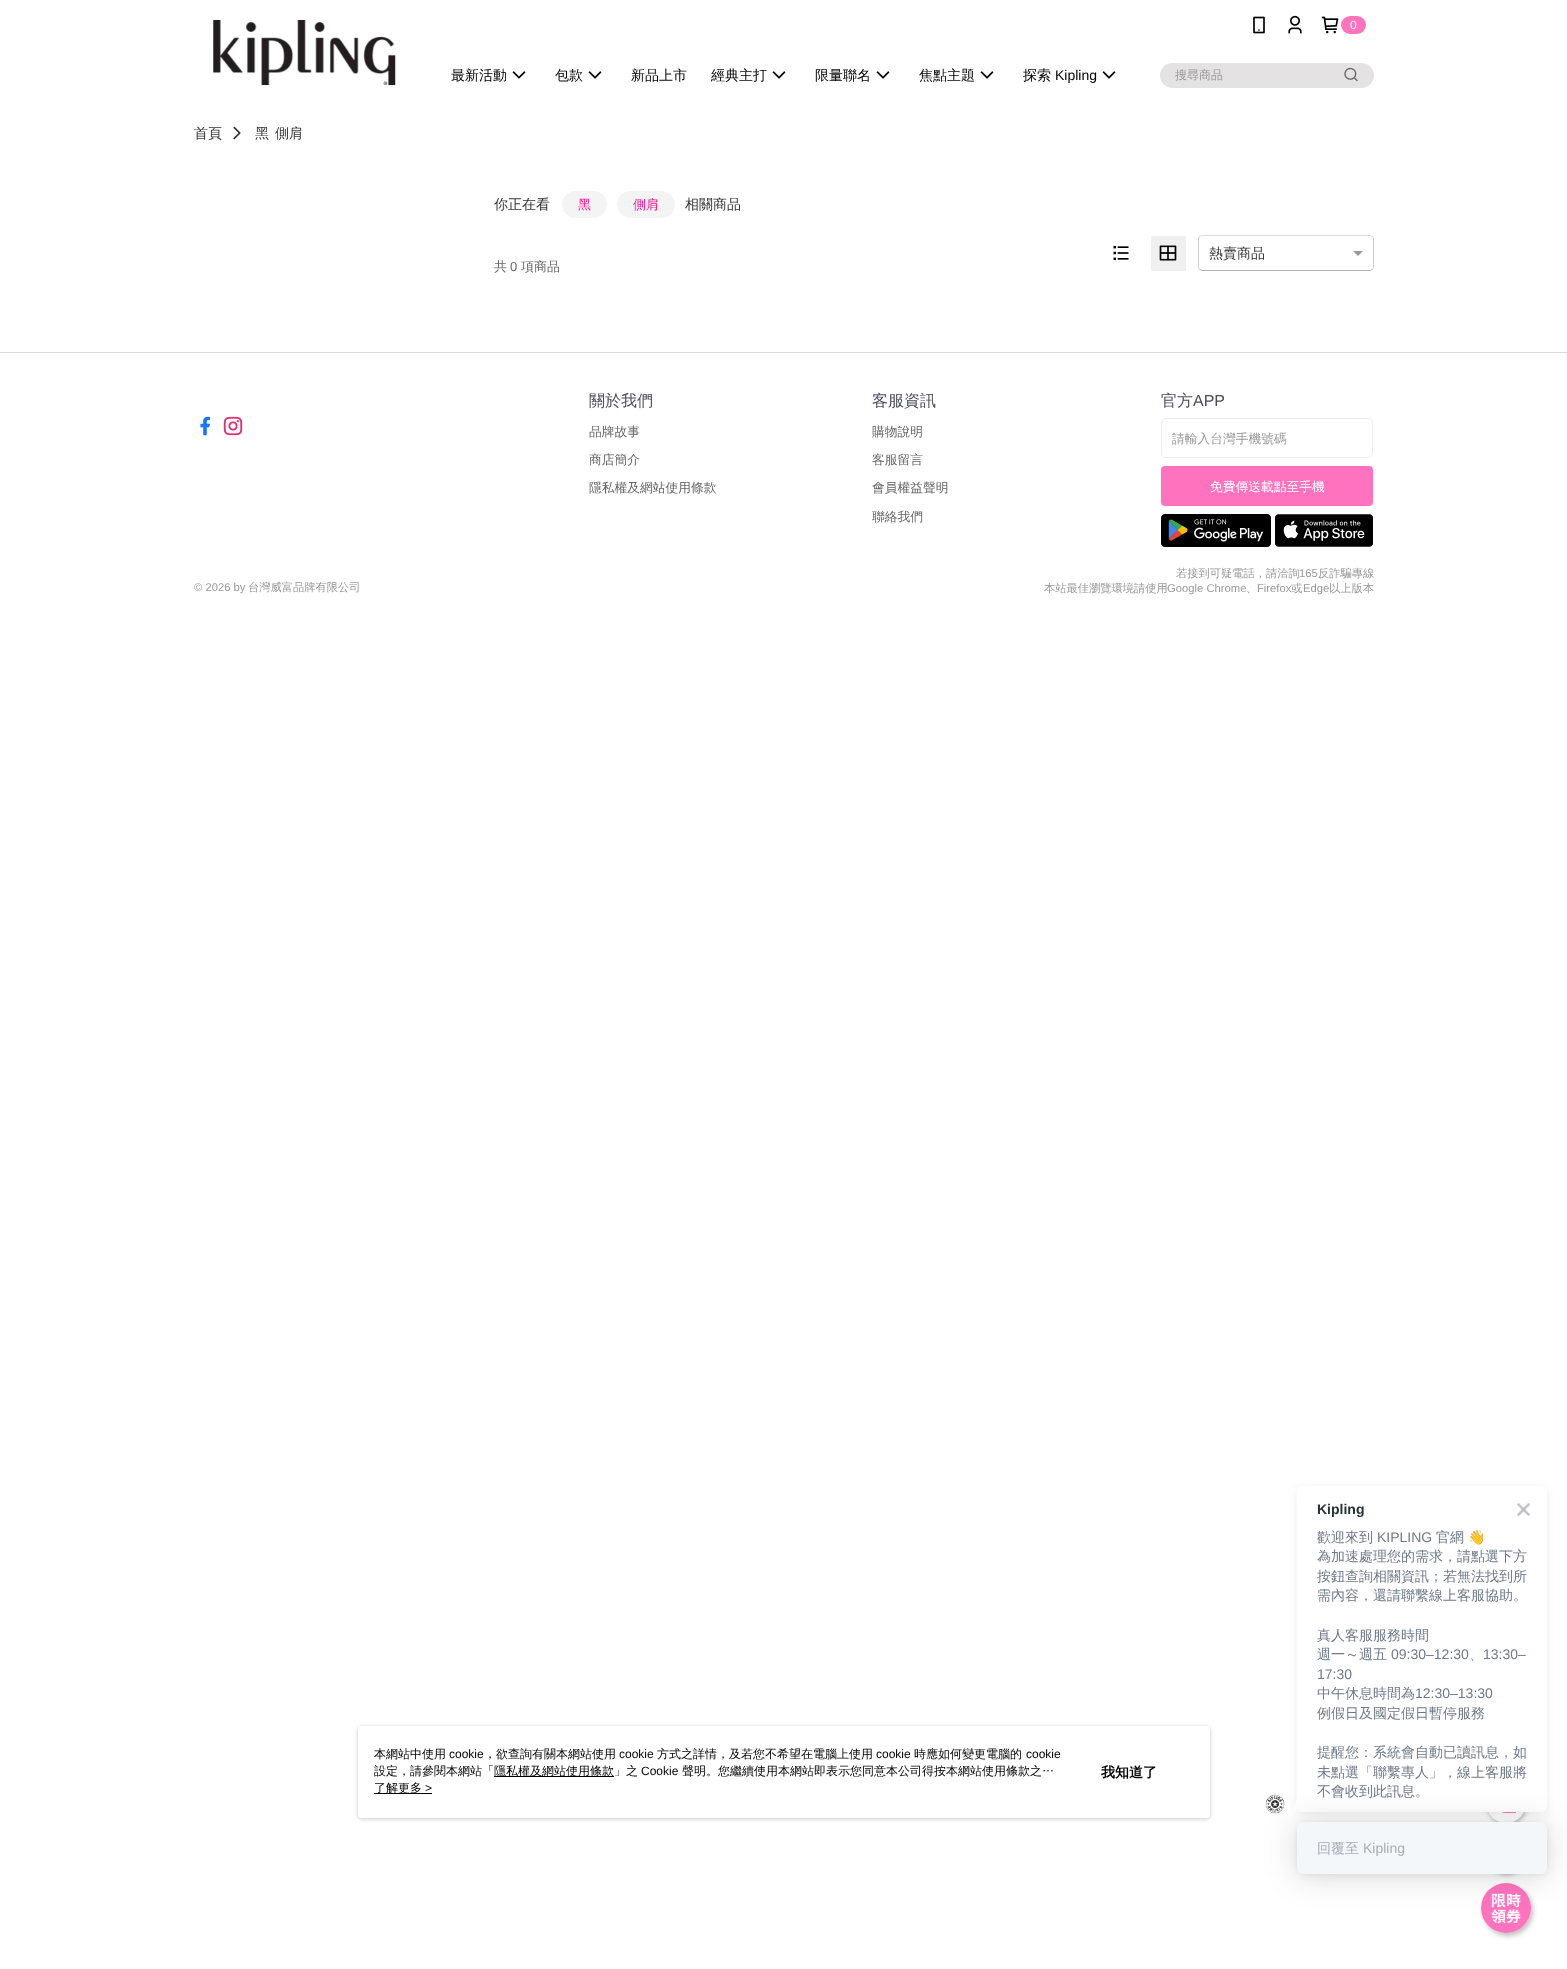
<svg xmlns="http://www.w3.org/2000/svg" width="1567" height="1969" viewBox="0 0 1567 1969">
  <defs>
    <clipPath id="clip1"><rect x="1175" y="67" width="152" height="17"/></clipPath>
    <clipPath id="clip2"><rect x="374" y="1746" width="690" height="34"/></clipPath>
  </defs>
  <rect width="100%" height="100%" fill="rgb(255,255,255)"/>
  <image x="213" y="20" width="183" height="65" href="pic1.png"/>
  <image x="1253" y="16" width="12" height="18" href="pic2.png"/>
  <image x="1288" y="15" width="14" height="19" href="pic3.png"/>
  <image x="1321" y="16" width="18" height="18" href="pic4.png"/>
  <rect x="1341" y="16" width="25" height="18" rx="9" fill="rgb(255,115,190)"/>
  <text x="1350" y="29" font-family="Liberation Sans" font-size="12" fill="rgb(255,255,255)">0</text>
  <text x="451" y="80" font-family="WenQuanYi Zen Hei" font-size="14" font-weight="500" fill="rgb(0,0,0)">最新活動</text>
  <image x="512" y="71" width="14" height="8" href="pic5.png"/>
  <text x="555" y="80" font-family="WenQuanYi Zen Hei" font-size="14" font-weight="500" fill="rgb(0,0,0)">包款</text>
  <image x="588" y="71" width="14" height="8" href="pic5.png"/>
  <g font-family="WenQuanYi Zen Hei" font-size="14" font-weight="500" fill="rgb(0,0,0)">
    <text x="631" y="80">新品上市</text>
    <text x="711" y="80">經典主打</text>
  </g>
  <image x="772" y="71" width="14" height="8" href="pic5.png"/>
  <text x="815" y="80" font-family="WenQuanYi Zen Hei" font-size="14" font-weight="500" fill="rgb(0,0,0)">限量聯名</text>
  <image x="876" y="71" width="14" height="8" href="pic5.png"/>
  <text x="919" y="80" font-family="WenQuanYi Zen Hei" font-size="14" font-weight="500" fill="rgb(0,0,0)">焦點主題</text>
  <image x="980" y="71" width="14" height="8" href="pic5.png"/>
  <text x="1023" y="80" font-family="WenQuanYi Zen Hei" font-size="14" font-weight="500" fill="rgb(0,0,0)">探索</text>
  <text x="1055" y="80" font-family="Liberation Sans" font-size="14" fill="rgb(0,0,0)">Kipling</text>
  <image x="1102" y="71" width="14" height="8" href="pic5.png"/>
  <rect x="1160" y="63" width="214" height="25" rx="12.5" fill="rgb(228,226,226)"/>
  <g clip-path="url(#clip1)">
    <text x="1175" y="79" font-family="WenQuanYi Zen Hei" font-size="12" font-weight="500" fill="rgb(153,153,153)">搜尋商品</text>
  </g>
  <image x="1344" y="67" width="14" height="15" href="pic6.png"/>
  <rect x="1487" y="1785" width="40" height="40" rx="20" fill="rgba(0,0,0,0.25)" filter="blur(2px)"/>
  <circle cx="1506" cy="1803" r="20" fill="rgb(255,255,255)"/>
  <image x="1501" y="1812" width="15" height="1" href="pic7.png"/>
  <rect x="1487" y="1835" width="40" height="40" rx="20" fill="rgba(0,0,0,0.25)" filter="blur(2px)"/>
  <rect x="1483" y="1886" width="50" height="50" rx="25" fill="rgba(0,0,0,0.25)" filter="blur(2.5px)"/>
  <circle cx="1506" cy="1908" r="25" fill="rgb(255,255,255)"/>
  <image x="1481" y="1883" width="50" height="50" href="pic8.png"/>
  <text x="194" y="138" font-family="WenQuanYi Zen Hei" font-size="14" font-weight="500" fill="rgb(51,51,51)">首頁</text>
  <image x="233" y="126" width="8" height="14" href="pic9.png"/>
  <g font-family="WenQuanYi Zen Hei" font-size="14" font-weight="500" fill="rgb(51,51,51)">
    <text x="255" y="138">黑</text>
    <text x="275" y="138">側肩</text>
    <text x="494" y="209">你正在看</text>
  </g>
  <rect x="562" y="191" width="45" height="27" rx="13.5" fill="rgb(244,244,244)"/>
  <text x="578" y="209" font-family="WenQuanYi Zen Hei" font-size="13" font-weight="500" fill="rgb(255,13,143)">黑</text>
  <rect x="617" y="191" width="58" height="27" rx="13.5" fill="rgb(244,244,244)"/>
  <text x="633" y="209" font-family="WenQuanYi Zen Hei" font-size="13" font-weight="500" fill="rgb(255,13,143)">側肩</text>
  <text x="685" y="209" font-family="WenQuanYi Zen Hei" font-size="14" font-weight="500" fill="rgb(51,51,51)">相關商品</text>
  <image x="1113" y="245" width="16" height="16" href="pic10.png"/>
  <rect x="1151" y="236" width="35" height="35" fill="rgb(240,240,240)"/>
  <image x="1159" y="245" width="18" height="16" href="pic11.png"/>
  <path d="M1199.5 236.5L1201.5 235.5H1342H1370L1372.5 236.5" fill="none" stroke="rgb(217,217,217)"/>
  <path d="M1372.5 236.5C1373 237 1373.5 238 1373.5 239V267C1373.5 268 1373 269 1372.5 269.5" fill="none" stroke="rgb(204,204,204)"/>
  <path d="M1372.5 269.5L1370.5 270.5H1230H1202L1199.5 269.5" fill="none" stroke="rgb(179,179,179)"/>
  <path d="M1199.5 269.5C1199 269 1198.5 268 1198.5 267V239C1198.5 238 1199 237 1199.5 236.5" fill="none" stroke="rgb(204,204,204)"/>
  <text x="1209" y="258" font-family="WenQuanYi Zen Hei" font-size="14" font-weight="500" fill="rgb(51,51,51)">熱賣商品</text>
  <path d="M1353 251H1363L1358 256Z" fill="rgb(153,153,153)"/>
  <text x="494" y="271" font-family="WenQuanYi Zen Hei" font-size="13" font-weight="500" fill="rgb(102,102,102)">共</text>
  <text x="510" y="271" font-family="Liberation Sans" font-size="13" fill="rgb(102,102,102)">0</text>
  <text x="521" y="271" font-family="WenQuanYi Zen Hei" font-size="13" font-weight="500" fill="rgb(102,102,102)">項商品</text>
  <rect x="0" y="352" width="1567" height="1" fill="rgb(218,218,218)"/>
  <image x="200" y="416" width="11" height="20" href="pic12.png"/>
  <image x="223" y="416" width="20" height="20" href="pic13.png"/>
  <text x="589" y="406" font-family="WenQuanYi Zen Hei" font-size="16" font-weight="500" fill="rgb(74,78,92)">關於我們</text>
  <g font-family="WenQuanYi Zen Hei" font-size="12.75" font-weight="500" fill="rgb(102,102,102)">
    <text x="589" y="436">品牌故事</text>
    <text x="589" y="464">商店簡介</text>
    <text x="589" y="492">隱私權及網站使用條款</text>
  </g>
  <text x="872" y="406" font-family="WenQuanYi Zen Hei" font-size="16" font-weight="500" fill="rgb(74,78,92)">客服資訊</text>
  <g font-family="WenQuanYi Zen Hei" font-size="12.75" font-weight="500" fill="rgb(102,102,102)">
    <text x="872" y="436">購物說明</text>
    <text x="872" y="464">客服留言</text>
    <text x="872" y="492">會員權益聲明</text>
    <text x="872" y="521">聯絡我們</text>
  </g>
  <text x="1161" y="406" font-family="WenQuanYi Zen Hei" font-size="16" font-weight="500" fill="rgb(74,78,92)">官方</text>
  <text x="1193" y="406" font-family="Liberation Sans" font-size="16" fill="rgb(74,78,92)">APP</text>
  <rect x="1161.5" y="418.5" width="211" height="39" rx="4.5" fill="none" stroke="rgb(237,237,237)"/>
  <text x="1172" y="443" font-family="WenQuanYi Zen Hei" font-size="12.75" font-weight="500" fill="rgb(153,153,153)">請輸入台灣手機號碼</text>
  <rect x="1161" y="466" width="212" height="40" rx="4" fill="rgb(255,115,190)"/>
  <text x="1210" y="491" font-family="WenQuanYi Zen Hei" font-size="12.75" font-weight="500" fill="rgb(255,255,255)">免費傳送載點至手機</text>
  <image x="1161" y="514" width="110" height="33" href="pic14.png"/>
  <image x="1275" y="514" width="98" height="33" href="pic15.png"/>
  <text x="1176" y="577" font-family="WenQuanYi Zen Hei" font-size="11.25" font-weight="500" fill="rgb(153,153,153)">若接到可疑電話，請洽詢</text>
  <text x="1299" y="577" font-family="Liberation Sans" font-size="11.25" fill="rgb(153,153,153)">165</text>
  <text x="1318" y="577" font-family="WenQuanYi Zen Hei" font-size="11.25" font-weight="500" fill="rgb(153,153,153)">反詐騙專線</text>
  <text x="194" y="591" font-family="Liberation Sans" font-size="11.25" fill="rgb(153,153,153)">© 2026 by</text>
  <g font-family="WenQuanYi Zen Hei" font-size="11.25" font-weight="500" fill="rgb(153,153,153)">
    <text x="248" y="591">台灣威富品牌有限公司</text>
    <text x="1044" y="592">本站最佳瀏覽環境請使用</text>
  </g>
  <text x="1167" y="592" font-family="Liberation Sans" font-size="11.25" fill="rgb(153,153,153)">Google Chrome</text>
  <text x="1246" y="592" font-family="WenQuanYi Zen Hei" font-size="11.25" font-weight="500" fill="rgb(153,153,153)">、</text>
  <text x="1257" y="592" font-family="Liberation Sans" font-size="11.25" fill="rgb(153,153,153)">Firefox</text>
  <text x="1291" y="592" font-family="WenQuanYi Zen Hei" font-size="11.25" font-weight="500" fill="rgb(153,153,153)">或</text>
  <text x="1303" y="592" font-family="Liberation Sans" font-size="11.25" fill="rgb(153,153,153)">Edge</text>
  <text x="1329" y="592" font-family="WenQuanYi Zen Hei" font-size="11.25" font-weight="500" fill="rgb(153,153,153)">以上版本</text>
  <rect x="358" y="1727" width="852" height="92" rx="4" fill="rgba(151,151,151,0.5)" filter="blur(2px)"/>
  <rect x="358" y="1726" width="852" height="92" rx="4" fill="rgb(255,255,255)"/>
  <text x="374" y="1758" font-family="WenQuanYi Zen Hei" font-size="12" font-weight="500" fill="rgb(0,0,0)">本網站中使用</text>
  <text x="449" y="1758" font-family="Liberation Sans" font-size="12" fill="rgb(0,0,0)">cookie</text>
  <text x="484" y="1758" font-family="WenQuanYi Zen Hei" font-size="12" font-weight="500" fill="rgb(0,0,0)">，欲查詢有關本網站使用</text>
  <text x="619" y="1758" font-family="Liberation Sans" font-size="12" fill="rgb(0,0,0)">cookie</text>
  <text x="657" y="1758" font-family="WenQuanYi Zen Hei" font-size="12" font-weight="500" fill="rgb(0,0,0)">方式之詳情，及若您不希望在電腦上使用</text>
  <text x="876" y="1758" font-family="Liberation Sans" font-size="12" fill="rgb(0,0,0)">cookie</text>
  <text x="914" y="1758" font-family="WenQuanYi Zen Hei" font-size="12" font-weight="500" fill="rgb(0,0,0)">時應如何變更電腦的</text>
  <text x="1026" y="1758" font-family="Liberation Sans" font-size="12" fill="rgb(0,0,0)">cookie</text>
  <g clip-path="url(#clip2)">
    <text x="374" y="1775" font-family="WenQuanYi Zen Hei" font-size="12" font-weight="500" fill="rgb(0,0,0)">設定，請參閱本網站「</text>
  </g>
  <rect x="494" y="1776" width="120" height="1" fill="rgb(0,0,0)"/>
  <text x="494" y="1775" font-family="WenQuanYi Zen Hei" font-size="12" font-weight="500" fill="rgb(0,0,0)">隱私權及網站使用條款」之</text>
  <text x="641" y="1775" font-family="Liberation Sans" font-size="12" fill="rgb(0,0,0)">Cookie</text>
  <text x="682" y="1775" font-family="WenQuanYi Zen Hei" font-size="12" font-weight="500" fill="rgb(0,0,0)">聲明。您繼續使用本網站即表示您同意本公司得按本網站使用條款之…</text>
  <rect x="374" y="1793" width="58" height="1" fill="rgb(0,0,0)"/>
  <text x="374" y="1792" font-family="WenQuanYi Zen Hei" font-size="12" font-weight="500" fill="rgb(0,0,0)">了解更多</text>
  <text x="425" y="1792" font-family="Liberation Sans" font-size="12" fill="rgb(0,0,0)">&gt;</text>
  <text x="1101" y="1777" font-family="WenQuanYi Zen Hei" font-size="14" font-weight="bold" fill="rgb(0,0,0)">我知道了</text>
  <rect x="1297" y="1488" width="250" height="326" rx="6" fill="rgba(35,47,53,0.09)" filter="blur(4px)"/>
  <path d="M1303 1486H1541C1544.5 1486 1547 1488.5 1547 1492V1806C1547 1809.5 1544.5 1812 1541 1812H1297V1492C1297 1488.5 1299.5 1486 1303 1486Z" fill="rgb(255,255,255)"/>
  <text x="1317" y="1514" font-family="Liberation Sans" font-size="14" font-weight="bold" fill="rgb(38,50,56)">Kipling</text>
  <image x="1517" y="1503" width="13" height="13" href="pic16.png"/>
  <text x="1317" y="1542" font-family="WenQuanYi Zen Hei" font-size="14" font-weight="500" fill="rgb(110,122,137)">歡迎來到</text>
  <text x="1377" y="1542" font-family="Liberation Sans" font-size="14" fill="rgb(110,122,137)">KIPLING</text>
  <text x="1436" y="1542" font-family="WenQuanYi Zen Hei" font-size="14" font-weight="500" fill="rgb(110,122,137)">官網</text>
  <text x="1468" y="1542" font-family="Noto Color Emoji" font-size="14" fill="rgb(110,122,137)">👋</text>
  <g font-family="WenQuanYi Zen Hei" font-size="14" font-weight="500" fill="rgb(110,122,137)">
    <text>
      <tspan x="1317" y="1561">為加速處理您的需求，請點選下方</tspan>
      <tspan x="1317" y="1581">按鈕查詢相關資訊；若無法找到所</tspan>
      <tspan x="1317" y="1600">需內容，還請聯繫線上客服協助。</tspan>
    </text>
    <text>
      <tspan x="1317" y="1640">真人客服服務時間</tspan>
      <tspan x="1317" y="1659">週一～週五</tspan>
    </text>
  </g>
  <text x="1391" y="1659" font-family="Liberation Sans" font-size="14" fill="rgb(110,122,137)">09:30–12:30</text>
  <text x="1469" y="1659" font-family="WenQuanYi Zen Hei" font-size="14" font-weight="500" fill="rgb(110,122,137)">、</text>
  <g font-family="Liberation Sans" font-size="14" fill="rgb(110,122,137)">
    <text x="1483" y="1659">13:30–</text>
    <text x="1317" y="1679">17:30</text>
  </g>
  <text x="1317" y="1698" font-family="WenQuanYi Zen Hei" font-size="14" font-weight="500" fill="rgb(110,122,137)">中午休息時間為</text>
  <text x="1415" y="1698" font-family="Liberation Sans" font-size="14" fill="rgb(110,122,137)">12:30–13:30</text>
  <g font-family="WenQuanYi Zen Hei" font-size="14" font-weight="500" fill="rgb(110,122,137)">
    <text x="1317" y="1718">例假日及國定假日暫停服務</text>
    <text>
      <tspan x="1317" y="1757">提醒您：系統會自動已讀訊息，如</tspan>
      <tspan x="1317" y="1777">未點選「聯繫專人」，線上客服將</tspan>
      <tspan x="1317" y="1796">不會收到此訊息。</tspan>
    </text>
  </g>
  <path d="M1297 1812H1292L1297 1799Z" fill="rgb(255,255,255)"/>
  <rect x="1297" y="1824" width="250" height="52" rx="6" fill="rgba(0,0,0,0.16)" filter="blur(16px)"/>
  <image x="1265" y="1794" width="20" height="20" href="pic17.png"/>
  <rect x="1297" y="1823" width="250" height="52" rx="6" fill="rgba(0,0,0,0.06)" filter="blur(3px)"/>
  <rect x="1297" y="1822" width="250" height="52" rx="6" fill="rgb(244,247,249)"/>
  <text x="1317" y="1853" font-family="WenQuanYi Zen Hei" font-size="14" font-weight="500" fill="rgb(165,173,182)">回覆至</text>
  <text x="1363" y="1853" font-family="Liberation Sans" font-size="14" fill="rgb(165,173,182)">Kipling</text>
</svg>
